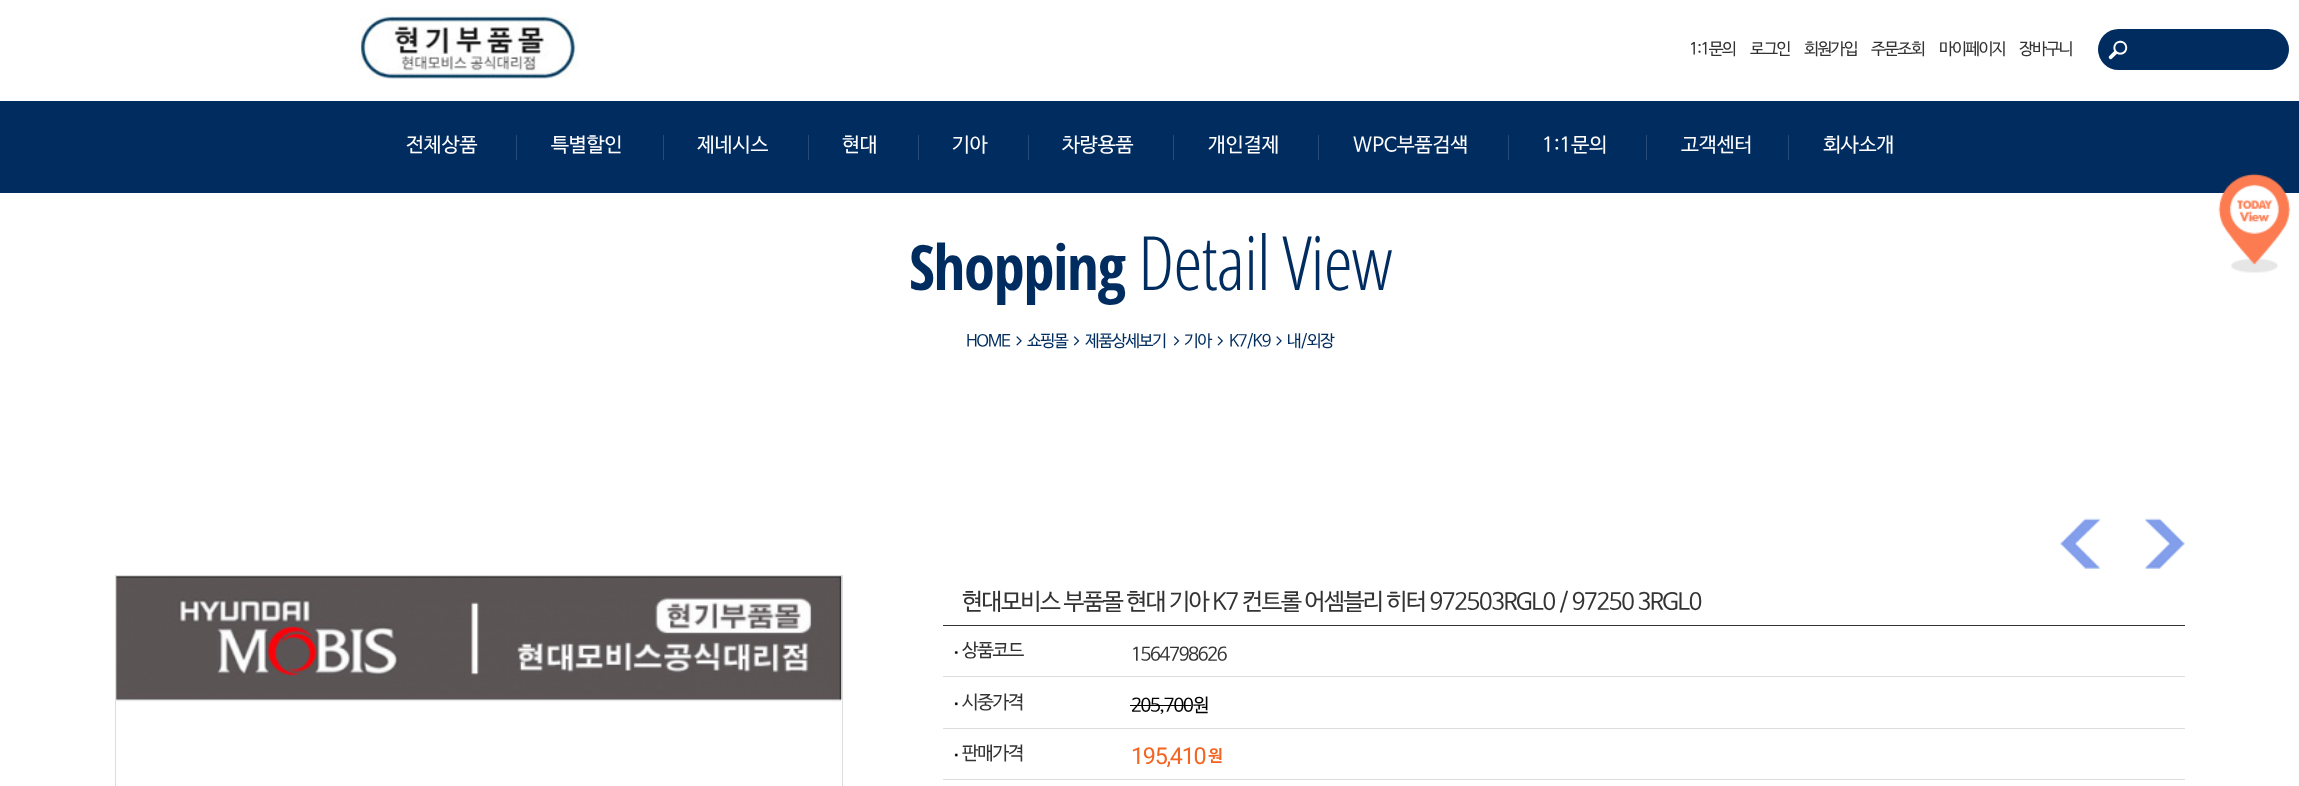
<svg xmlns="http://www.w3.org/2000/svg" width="2299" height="786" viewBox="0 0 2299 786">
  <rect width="100%" height="100%" fill="rgb(255,255,255)"/>
  <image x="359" y="9" width="220" height="70" href="pic1.png"/>
  <g font-family="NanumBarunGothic" font-size="16.5" letter-spacing="-1.5" fill="rgb(51,51,51)">
    <text x="1689" y="54">1:1문의</text>
    <text x="1750" y="54">로그인</text>
    <text x="1804" y="54">회원가입</text>
    <text x="1871" y="54">주문조회</text>
    <text x="1939" y="54">마이페이지</text>
    <text x="2019" y="54">장바구니</text>
  </g>
  <rect x="2098" y="29" width="191" height="41" rx="20.5" fill="rgb(0,44,95)"/>
  <text x="2107" y="55" font-family="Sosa" font-size="22" letter-spacing="-2" fill="rgb(255,255,255)">]</text>
  <rect x="0" y="101" width="2299" height="92" fill="rgb(0,44,95)"/>
  <text x="406" y="151" font-family="NanumBarunGothic" font-size="20" fill="rgb(255,255,255)">전체상품</text>
  <rect x="516" y="135" width="1" height="25" fill="rgb(38,76,119)"/>
  <text x="551" y="151" font-family="NanumBarunGothic" font-size="20" fill="rgb(255,255,255)">특별할인</text>
  <rect x="663" y="135" width="1" height="25" fill="rgb(38,76,119)"/>
  <text x="697" y="151" font-family="NanumBarunGothic" font-size="20" fill="rgb(255,255,255)">제네시스</text>
  <rect x="808" y="135" width="1" height="25" fill="rgb(38,76,119)"/>
  <text x="842" y="151" font-family="NanumBarunGothic" font-size="20" fill="rgb(255,255,255)">현대</text>
  <rect x="918" y="135" width="1" height="25" fill="rgb(38,76,119)"/>
  <text x="952" y="151" font-family="NanumBarunGothic" font-size="20" fill="rgb(255,255,255)">기아</text>
  <rect x="1028" y="135" width="1" height="25" fill="rgb(38,76,119)"/>
  <text x="1062" y="151" font-family="NanumBarunGothic" font-size="20" fill="rgb(255,255,255)">차량용품</text>
  <rect x="1173" y="135" width="1" height="25" fill="rgb(38,76,119)"/>
  <text x="1208" y="151" font-family="NanumBarunGothic" font-size="20" fill="rgb(255,255,255)">개인결제</text>
  <rect x="1318" y="135" width="1" height="25" fill="rgb(38,76,119)"/>
  <text x="1353" y="151" font-family="NanumBarunGothic" font-size="20" fill="rgb(255,255,255)">WPC부품검색</text>
  <rect x="1508" y="135" width="1" height="25" fill="rgb(38,76,119)"/>
  <text x="1542" y="151" font-family="NanumBarunGothic" font-size="20" fill="rgb(255,255,255)">1:1문의</text>
  <rect x="1646" y="135" width="1" height="25" fill="rgb(38,76,119)"/>
  <text x="1681" y="151" font-family="NanumBarunGothic" font-size="20" fill="rgb(255,255,255)">고객센터</text>
  <rect x="1788" y="135" width="1" height="25" fill="rgb(38,76,119)"/>
  <text x="1823" y="151" font-family="NanumBarunGothic" font-size="20" fill="rgb(255,255,255)">회사소개</text>
  <text x="909" y="290" font-family="Open Sans Condensed" font-size="62.5" font-weight="bold" letter-spacing="-1.25" fill="rgb(0,44,95)">Shopping</text>
  <text x="1138" y="290" font-family="Open Sans Condensed" font-size="75" font-weight="300" letter-spacing="-1.25" fill="rgb(0,44,95)">Detail View</text>
  <text x="966" y="346" font-family="NanumBarunGothic" font-size="16.5" letter-spacing="-1.25" fill="rgb(0,44,95)">HOME</text>
  <image x="1016" y="336" width="6" height="10" href="pic2.png"/>
  <text x="1027" y="346" font-family="NanumBarunGothic" font-size="16.5" letter-spacing="-1.25" fill="rgb(0,44,95)">쇼핑몰</text>
  <image x="1073" y="336" width="7" height="10" href="pic3.png"/>
  <text x="1085" y="346" font-family="NanumBarunGothic" font-size="16.5" letter-spacing="-1.25" fill="rgb(0,44,95)">제품상세보기</text>
  <image x="1173" y="336" width="7" height="10" href="pic3.png"/>
  <text x="1184" y="346" font-family="NanumBarunGothic" font-size="16.5" letter-spacing="-1.25" fill="rgb(0,44,95)">기아</text>
  <image x="1217" y="336" width="6" height="10" href="pic4.png"/>
  <text x="1229" y="346" font-family="NanumBarunGothic" font-size="16.5" letter-spacing="-1.25" fill="rgb(0,44,95)">K7/K9</text>
  <image x="1276" y="336" width="6" height="10" href="pic2.png"/>
  <text x="1287" y="346" font-family="NanumBarunGothic" font-size="16.5" letter-spacing="-1.25" fill="rgb(0,44,95)">내/외장</text>
  <rect x="115.5" y="575.5" width="727" height="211" fill="none" stroke="rgb(221,221,221)"/>
  <image x="116" y="576" width="726" height="126" href="pic5.png"/>
  <image x="2060" y="518" width="41" height="51" href="pic6.png"/>
  <image x="2145" y="518" width="40" height="51" href="pic7.png"/>
  <text x="962" y="609" font-family="NanumBarunGothic" font-size="23.3" letter-spacing="-1.25" fill="rgb(51,51,51)">현대모비스 부품몰 현대 기아 K7 컨트롤 어셈블리 히터 972503RGL0 / 97250 3RGL0</text>
  <rect x="943" y="625" width="1242" height="1" fill="rgb(51,51,51)"/>
  <image x="954" y="651" width="4" height="3" href="pic8.png"/>
  <g font-family="NanumBarunGothic" font-size="18.5" letter-spacing="-1.25" fill="rgb(51,51,51)">
    <text x="962" y="656">상품코드</text>
    <text x="1131" y="660">1564798626</text>
  </g>
  <rect x="943" y="676" width="1242" height="1" fill="rgb(221,221,221)"/>
  <image x="954" y="702" width="4" height="4" href="pic9.png"/>
  <text x="962" y="708" font-family="NanumBarunGothic" font-size="18.5" letter-spacing="-1.25" fill="rgb(51,51,51)">시중가격</text>
  <text x="1131" y="711" font-family="NanumBarunGothic" font-size="18.5" letter-spacing="-1.25" fill="rgb(0,0,0)">205,700원</text>
  <rect x="1130" y="705" width="61" height="1" fill="rgb(0,0,0)"/>
  <rect x="943" y="728" width="1242" height="1" fill="rgb(221,221,221)"/>
  <image x="954" y="753" width="4" height="4" href="pic10.png"/>
  <text x="962" y="759" font-family="NanumBarunGothic" font-size="18.5" letter-spacing="-1.25" fill="rgb(51,51,51)">판매가격</text>
  <text x="1131" y="764" font-family="Roboto" font-size="23.3" letter-spacing="-1.25" fill="rgb(242,101,34)">195,410</text>
  <text x="1208" y="761" font-family="NanumBarunGothic" font-size="16.5" font-weight="bold" letter-spacing="-1.25" fill="rgb(242,101,34)">원</text>
  <rect x="943" y="779" width="1242" height="1" fill="rgb(221,221,221)"/>
  <image x="2218" y="173" width="73" height="100" href="pic11.png"/>
</svg>
